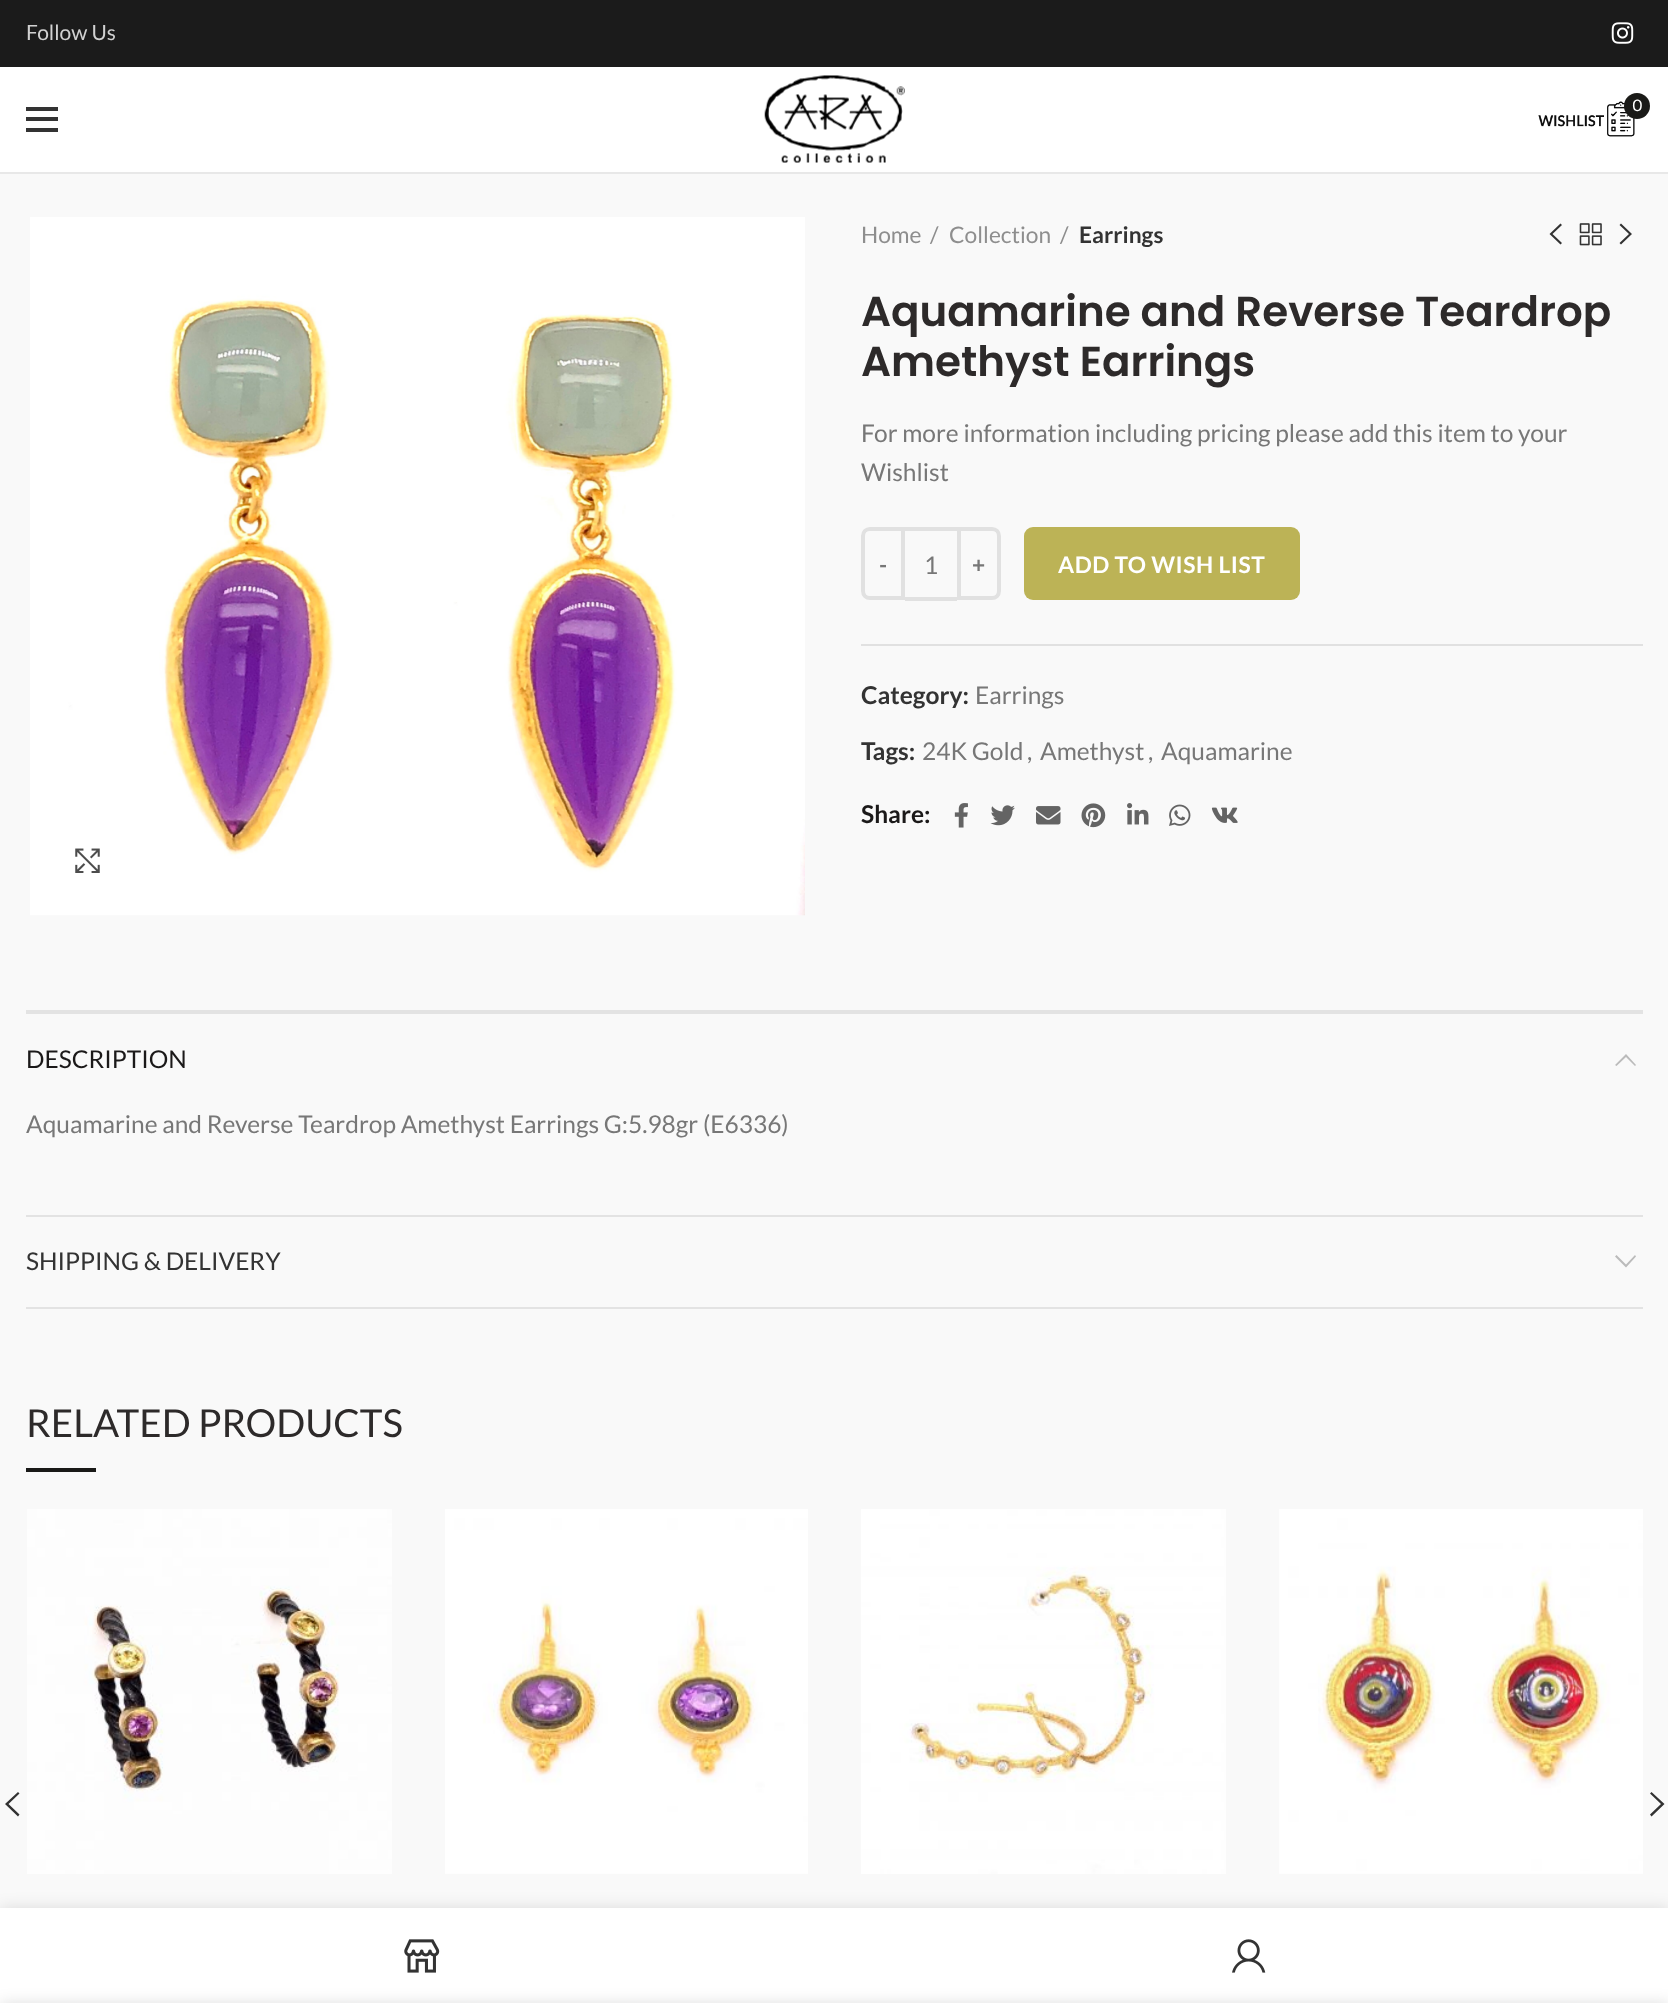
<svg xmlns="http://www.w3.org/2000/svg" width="1668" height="2003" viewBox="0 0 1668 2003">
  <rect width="100%" height="100%" fill="rgb(255,255,255)"/>
  <rect x="0" y="0" width="1668" height="67" fill="rgb(27,27,27)"/>
  <text x="26" y="40" font-family="Lato" font-size="21" fill="rgb(209,209,209)">Follow Us</text>
  <image x="1611" y="22" width="23" height="22" href="pic1.png"/>
  <rect x="0" y="172" width="1668" height="2" fill="rgb(232,232,232)"/>
  <image x="764" y="75" width="141" height="88" href="pic2.png"/>
  <image x="1538" y="101" width="97" height="36" href="pic3.png"/>
  <circle cx="1637" cy="106" r="13" fill="rgb(26,26,24)"/>
  <text x="1632" y="111" font-family="Karla" font-size="18" fill="rgb(255,255,255)">0</text>
  <rect x="26" y="117" width="32" height="4" fill="rgb(51,51,51)"/>
  <rect x="26" y="107" width="32" height="4" fill="rgb(51,51,51)"/>
  <rect x="26" y="128" width="32" height="4" fill="rgb(51,51,51)"/>
  <rect x="0" y="174" width="1668" height="1734" fill="rgb(249,249,249)"/>
  <image x="30" y="217" width="775" height="699" href="pic4.png"/>
  <image x="75" y="848" width="25" height="25" href="pic5.png"/>
  <g font-family="Lato" font-size="22.75" fill="rgb(142,142,142)">
    <text x="861" y="243">Home</text>
    <text x="930" y="243">/</text>
    <text x="949" y="243">Collection</text>
    <text x="1060" y="243">/</text>
  </g>
  <text x="1079" y="243" font-family="Lato" font-size="22.75" font-weight="bold" fill="rgb(51,51,51)">Earrings</text>
  <path d="M1562 225L1552.5 234L1562 243L1560.5 244.5L1549.5 234L1560.5 223.5Z" fill="rgb(51,51,51)"/>
  <image x="1579" y="223" width="23" height="23" href="pic6.png"/>
  <path d="M1621 223.5L1632 234L1621 244.5L1619.5 243L1629 234L1619.5 225Z" fill="rgb(51,51,51)"/>
  <g font-family="Poppins" font-size="42" font-weight="600" fill="rgb(45,42,42)">
    <text>
      <tspan x="861" y="326">Aquamarine and Reverse Teardrop</tspan>
      <tspan x="861" y="376">Amethyst Earrings</tspan>
    </text>
  </g>
  <g font-family="Lato" font-size="24.5" fill="rgb(119,119,119)">
    <text>
      <tspan x="861" y="442">For more information including pricing please add this item to your</tspan>
      <tspan x="861" y="481">Wishlist</tspan>
    </text>
  </g>
  <path d="M870 529H903V598H870C866 598 863 595 863 591V536C863 532 866 529 870 529Z" fill="none" stroke="rgb(225,225,225)" stroke-width="4"/>
  <text x="879" y="573" font-family="Lato" font-size="22.75" font-weight="bold" letter-spacing="0.5" fill="rgb(119,119,119)">-</text>
  <rect x="905" y="527" width="52" height="4" fill="rgb(225,225,225)"/>
  <rect x="905" y="597" width="52" height="4" fill="rgb(225,225,225)"/>
  <text x="924" y="574" font-family="Lato" font-size="24.5" fill="rgb(119,119,119)">1</text>
  <path d="M959 529H992C996 529 999 532 999 536V591C999 595 996 598 992 598H959Z" fill="none" stroke="rgb(225,225,225)" stroke-width="4"/>
  <text x="972" y="573" font-family="Lato" font-size="22.75" font-weight="bold" letter-spacing="0.5" fill="rgb(119,119,119)">+</text>
  <rect x="1024" y="527" width="276" height="73" rx="9" fill="rgb(188,179,86)"/>
  <text x="1058" y="573" font-family="Lato" font-size="22.75" font-weight="bold" letter-spacing="0.5" fill="rgb(255,255,255)">ADD TO WISH LIST</text>
  <rect x="861" y="644" width="782" height="2" fill="rgb(225,225,225)"/>
  <text x="861" y="704" font-family="Lato" font-size="24.5" font-weight="bold" fill="rgb(51,51,51)">Category:</text>
  <text x="975" y="704" font-family="Lato" font-size="24.5" fill="rgb(119,119,119)">Earrings</text>
  <text x="861" y="760" font-family="Lato" font-size="24.5" font-weight="bold" fill="rgb(51,51,51)">Tags:</text>
  <g font-family="Lato" font-size="24.5" fill="rgb(119,119,119)">
    <text x="922" y="760">24K Gold</text>
    <text x="1027" y="760">,</text>
    <text x="1040" y="760">Amethyst</text>
    <text x="1148" y="760">,</text>
    <text x="1161" y="760">Aquamarine</text>
  </g>
  <text x="861" y="823" font-family="Lato" font-size="24.5" font-weight="bold" fill="rgb(27,25,25)">Share:</text>
  <image x="954" y="803" width="14" height="25" href="pic7.png"/>
  <image x="990" y="805" width="25" height="21" href="pic8.png"/>
  <image x="1036" y="806" width="25" height="19" href="pic9.png"/>
  <image x="1081" y="803" width="25" height="25" href="pic10.png"/>
  <image x="1127" y="803" width="22" height="22" href="pic11.png"/>
  <image x="1169" y="804" width="22" height="22" href="pic12.png"/>
  <image x="1211" y="807" width="27" height="16" href="pic13.png"/>
  <rect x="26" y="1010" width="1617" height="4" fill="rgb(227,227,227)"/>
  <rect x="26" y="1215" width="1617" height="2" fill="rgb(227,227,227)"/>
  <text x="26" y="1068" font-family="Lato" font-size="24.5" fill="rgb(27,25,25)">DESCRIPTION</text>
  <path d="M1616.5 1066L1615 1065L1626 1054L1636 1065L1635 1066L1626 1057Z" fill="rgb(187,187,187)"/>
  <text x="26" y="1133" font-family="Lato" font-size="24.5" fill="rgb(119,119,119)">Aquamarine and Reverse Teardrop Amethyst Earrings G:5.98gr (E6336)</text>
  <rect x="26" y="1307" width="1617" height="2" fill="rgb(227,227,227)"/>
  <text x="26" y="1270" font-family="Lato" font-size="24.5" fill="rgb(51,51,51)">SHIPPING &amp; DELIVERY</text>
  <path d="M1635 1255L1636 1256.5L1626 1267.5L1615 1256.5L1616.5 1255L1626 1264.5Z" fill="rgb(187,187,187)"/>
  <text x="26" y="1437" font-family="Lato" font-size="38.5" fill="rgb(45,42,42)">RELATED PRODUCTS</text>
  <rect x="26" y="1468" width="70" height="4" fill="rgb(26,26,24)"/>
  <image x="27" y="1509" width="365" height="365" href="pic14.png"/>
  <image x="445" y="1509" width="363" height="365" href="pic15.png"/>
  <image x="861" y="1509" width="365" height="365" href="pic16.png"/>
  <image x="1279" y="1509" width="364" height="365" href="pic17.png"/>
  <path d="M19.5 1793.5L8.5 1804L19.5 1814.5L18 1816.5L5 1804L18 1792Z" fill="rgb(50,50,50)"/>
  <path d="M1651.5 1792L1664.5 1804L1651.5 1816.5L1650 1814.5L1661 1804L1650 1793.5Z" fill="rgb(50,50,50)"/>
  <rect x="0" y="1908" width="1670" height="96" fill="rgba(0,0,0,0.12)" filter="blur(8px)"/>
  <rect x="0" y="1908" width="1668" height="95" fill="rgb(255,255,255)"/>
  <image x="404" y="1939" width="36" height="34" href="pic18.png"/>
  <image x="1232" y="1939" width="34" height="34" href="pic19.png"/>
  <rect x="0" y="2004" width="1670" height="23" fill="rgba(0,0,0,0.14)" filter="blur(8px)"/>
</svg>
